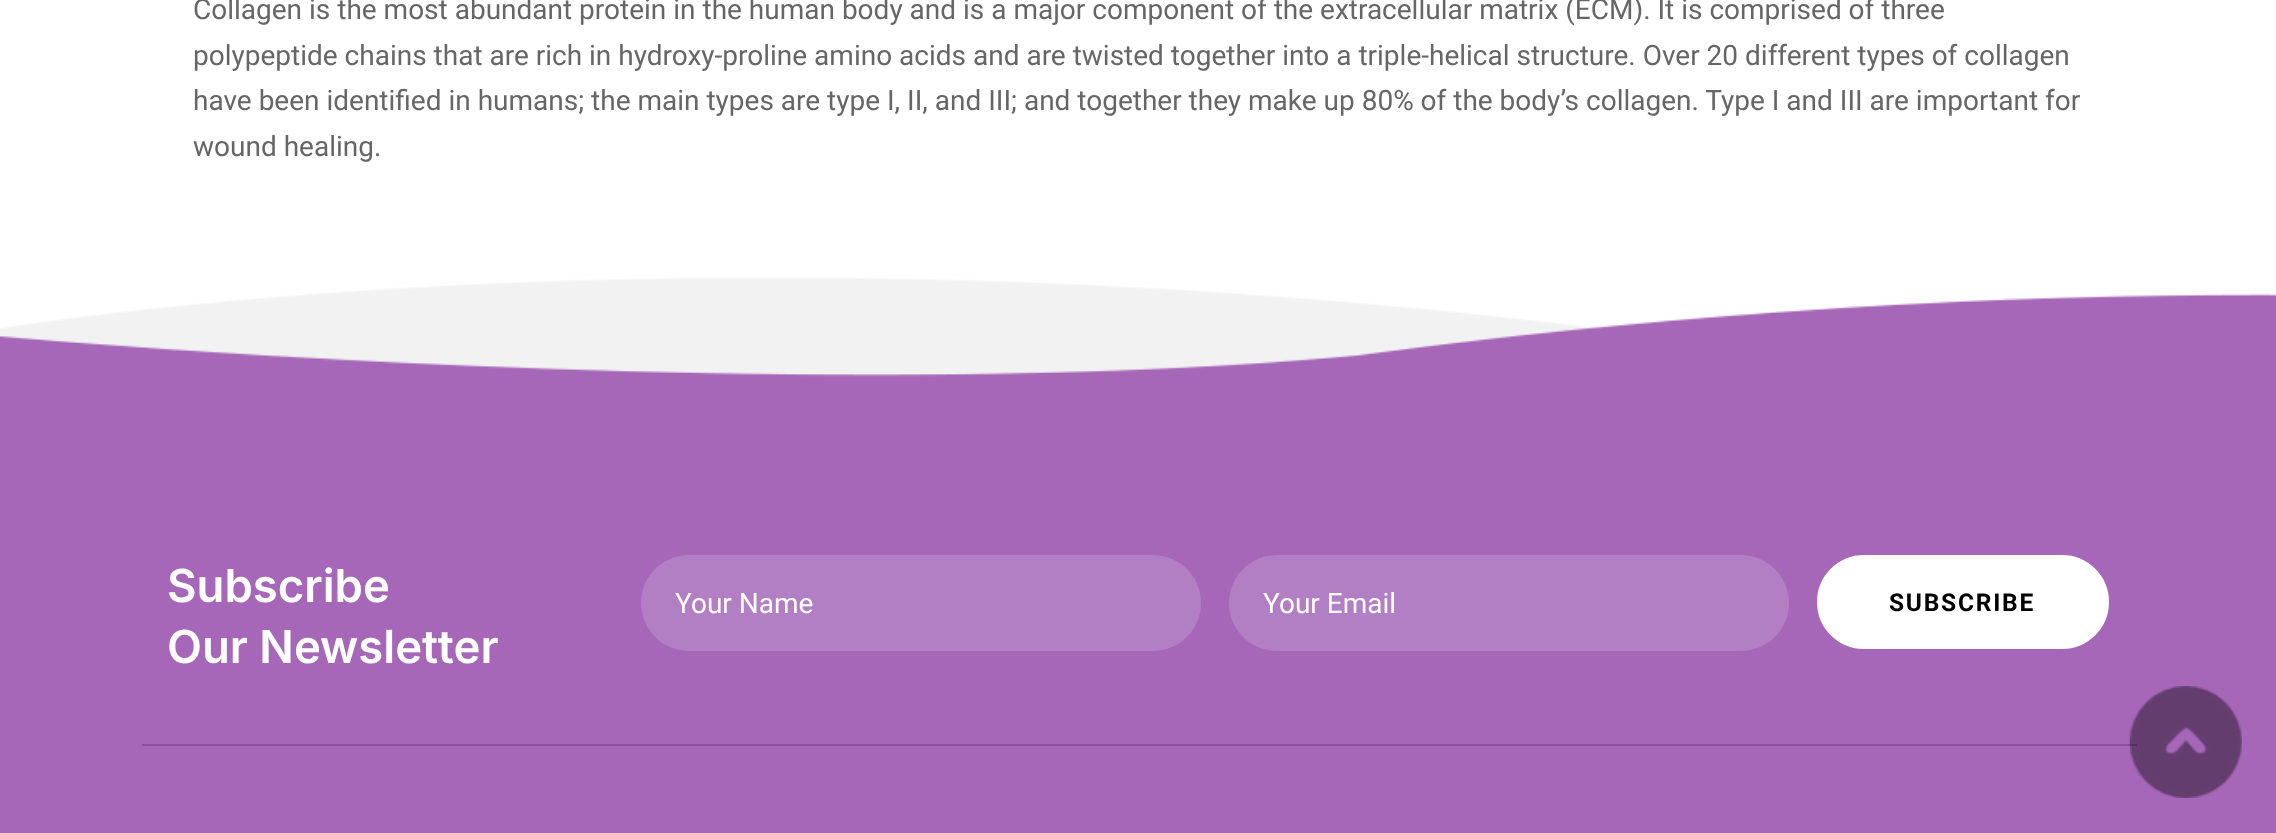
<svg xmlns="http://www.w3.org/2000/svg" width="2276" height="833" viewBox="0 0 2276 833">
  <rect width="100%" height="100%" fill="rgb(255,255,255)"/>
  <g font-family="Roboto" font-size="28" fill="rgb(102,102,102)">
    <text>
      <tspan x="193" y="19">Collagen is the most abundant protein in the human body and is a major component of the extracellular matrix (ECM). It is comprised of three</tspan>
      <tspan x="193" y="65">polypeptide chains that are rich in hydroxy-proline amino acids and are twisted together into a triple-helical structure. Over 20 different types of collagen</tspan>
      <tspan x="193" y="110">have been identified in humans; the main types are type I, II, and III; and together they make up 80% of the body’s collagen. Type I and III are important for</tspan>
      <tspan x="193" y="156">wound healing.</tspan>
    </text>
  </g>
  <image x="0" y="278" width="1603" height="99" href="pic2.png"/>
  <image x="0" y="293" width="2276" height="540" href="pic1.png"/>
  <rect x="142" y="744" width="1995" height="2" fill="rgb(142,77,161)"/>
  <g font-family="Inter" font-size="45.5" font-weight="600" fill="rgb(255,255,255)">
    <text>
      <tspan x="167" y="602">Subscribe</tspan>
      <tspan x="167" y="663">Our Newsletter</tspan>
    </text>
  </g>
  <rect x="641" y="555" width="560" height="96" rx="48" fill="rgb(179,127,196)"/>
  <text x="675" y="613" font-family="Roboto" font-size="28" fill="rgb(255,255,255)">Your Name</text>
  <rect x="1229" y="555" width="560" height="96" rx="48" fill="rgb(179,127,196)"/>
  <text x="1263" y="613" font-family="Roboto" font-size="28" fill="rgb(255,255,255)">Your Email</text>
  <rect x="1819" y="557" width="288" height="90" rx="45" fill="rgb(255,255,255)" stroke="rgb(255,255,255)" stroke-width="4"/>
  <text x="1889" y="611" font-family="Roboto" font-size="24.5" font-weight="bold" letter-spacing="1.75" fill="rgb(0,0,0)">SUBSCRIBE</text>
  <image x="2129" y="686" width="113" height="112" href="pic3.png"/>
</svg>
